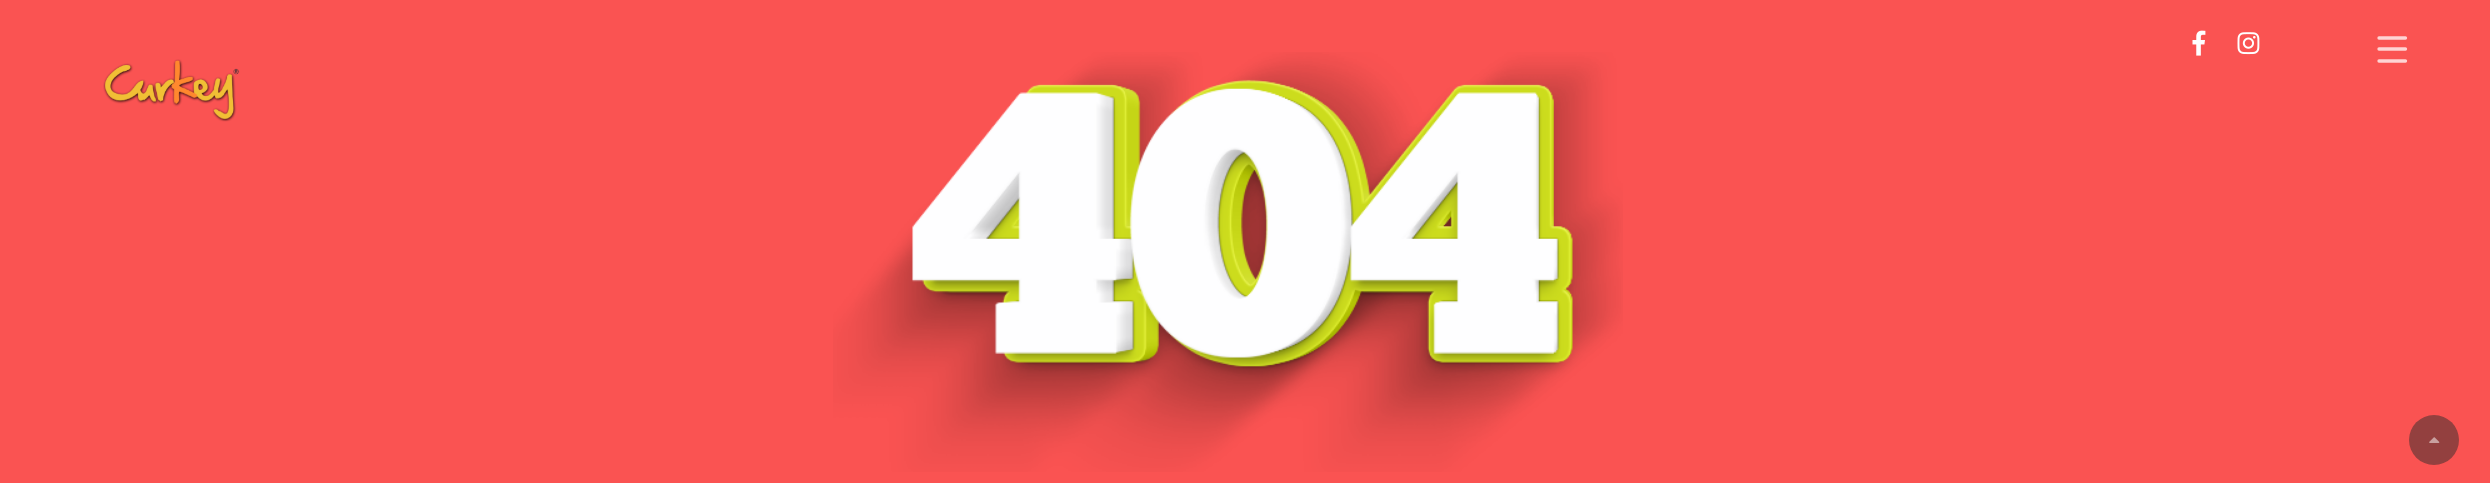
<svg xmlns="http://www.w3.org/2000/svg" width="2490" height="483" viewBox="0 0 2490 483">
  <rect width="100%" height="100%" fill="rgb(250,83,82)"/>
  <image x="2192" y="30" width="14" height="26" href="pic1.png"/>
  <image x="2237" y="32" width="23" height="23" href="pic2.png"/>
  <path d="M2379 38H2405.5M2379 49H2405.5M2379 61H2405.5" fill="none" stroke="rgb(254,212,212)" stroke-width="3.3" stroke-linecap="round"/>
  <image x="103" y="59" width="137" height="63" href="pic3.png"/>
  <image x="833" y="52" width="790" height="420" href="pic4.png"/>
  <circle cx="2434" cy="440" r="25" fill="rgb(147,64,63)"/>
  <image x="2429" y="437" width="11" height="6" href="pic5.png"/>
</svg>
